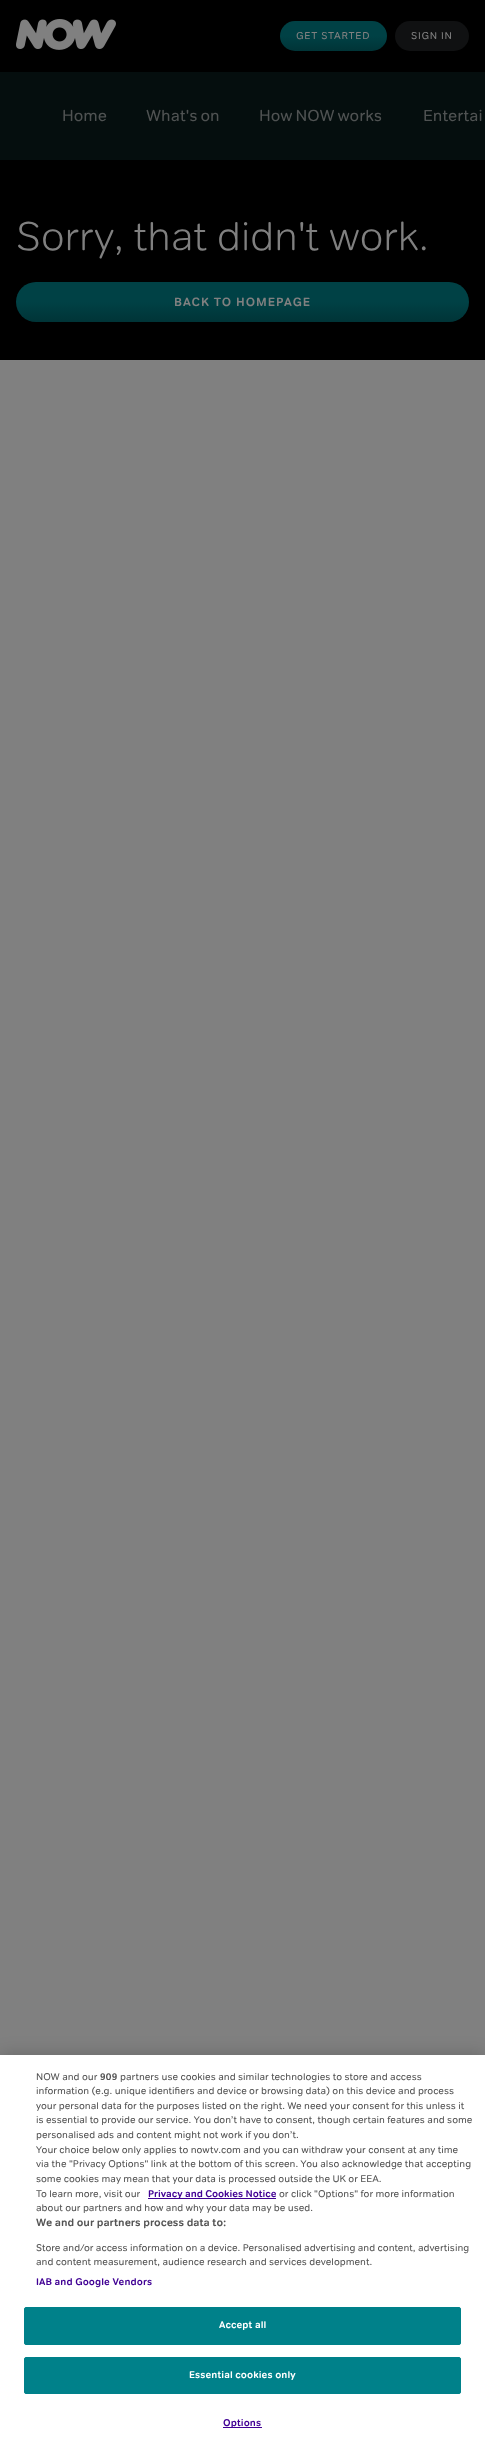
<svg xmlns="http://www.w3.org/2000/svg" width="485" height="2454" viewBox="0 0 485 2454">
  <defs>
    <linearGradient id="g1" gradientUnits="userSpaceOnUse" x1="334" y1="21" x2="334" y2="51"><stop offset="0" stop-color="rgb(0,65,69)"/><stop offset="0.5" stop-color="rgb(0,65,69)"/><stop offset="1" stop-color="rgb(0,52,55)"/></linearGradient>
    <linearGradient id="g2" gradientUnits="userSpaceOnUse" x1="243" y1="282" x2="243" y2="322"><stop offset="0" stop-color="rgb(0,65,69)"/><stop offset="0.5" stop-color="rgb(0,65,69)"/><stop offset="1" stop-color="rgb(0,52,55)"/></linearGradient>
  </defs>
  <rect width="100%" height="100%" fill="rgb(128,128,128)"/>
  <rect x="0" y="0" width="485" height="72" fill="rgb(0,0,0)"/>
  <image x="16" y="19" width="100" height="31" href="pic1.png"/>
  <rect x="280" y="21" width="107" height="30" rx="15" fill="url(#g1)"/>
  <text x="296" y="39" font-family="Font" font-size="10" letter-spacing="0.75" fill="rgb(128,128,128)">GET STARTED</text>
  <rect x="395" y="21" width="74" height="30" rx="15" fill="rgb(16,17,18)"/>
  <text x="411" y="39" font-family="Font" font-size="10" letter-spacing="0.75" fill="rgb(128,128,128)">SIGN IN</text>
  <rect x="0" y="72" width="485" height="88" fill="rgb(5,14,14)"/>
  <g font-family="Font" font-size="16" fill="rgb(79,82,82)">
    <text x="62" y="121">Home</text>
    <text x="146" y="121" word-spacing="-1">What's on</text>
    <text x="259" y="121" word-spacing="-1">How NOW works</text>
    <text x="423" y="121">Entertai</text>
  </g>
  <rect x="0" y="160" width="485" height="200" fill="rgb(0,0,0)"/>
  <text x="16" y="250" font-family="Font" font-size="40" font-weight="300" fill="rgb(128,128,128)">Sorry, that didn't work.</text>
  <rect x="16" y="282" width="453" height="40" rx="20" fill="url(#g2)"/>
  <text x="174" y="306" font-family="Font" font-size="12" font-weight="bold" letter-spacing="1" fill="rgb(128,128,128)">BACK TO HOMEPAGE</text>
  <rect x="0" y="2055" width="485" height="399" fill="rgba(0,0,0,0.2)" filter="blur(9px)"/>
  <rect x="0" y="2055" width="485" height="399" fill="rgb(255,255,255)"/>
  <text x="36" y="2080" font-family="Font" font-size="9.75" fill="rgb(85,85,85)">NOW and our</text>
  <text x="100" y="2080" font-family="Font" font-size="9.75" font-weight="bold" fill="rgb(85,85,85)">909</text>
  <g font-family="Font" font-size="9.75" fill="rgb(85,85,85)">
    <text x="120" y="2080">partners use cookies and similar technologies to store and access</text>
    <text>
      <tspan x="36" y="2094">information (e.g. unique identifiers and device or browsing data) on this device and process</tspan>
      <tspan x="36" y="2109">your personal data for the purposes listed on the right. We need your consent for this unless it</tspan>
      <tspan x="36" y="2123">is essential to provide our service. You don’t have to consent, though certain features and some</tspan>
      <tspan x="36" y="2138">personalised ads and content might not work if you don’t.</tspan>
      <tspan x="36" y="2153">Your choice below only applies to nowtv.com and you can withdraw your consent at any time</tspan>
      <tspan x="36" y="2167">via the "Privacy Options" link at the bottom of this screen. You also acknowledge that accepting</tspan>
      <tspan x="36" y="2182">some cookies may mean that your data is processed outside the UK or EEA.</tspan>
      <tspan x="36" y="2197">To learn more, visit our</tspan>
    </text>
  </g>
  <rect x="148" y="2198" width="128" height="1" fill="rgb(64,0,148)"/>
  <text x="148" y="2197" font-family="Font" font-size="9.75" font-weight="bold" fill="rgb(64,0,148)">Privacy and Cookies Notice</text>
  <g font-family="Font" font-size="9.75" fill="rgb(85,85,85)">
    <text x="279" y="2197">or click "Options" for more information</text>
    <text x="36" y="2211">about our partners and how and why your data may be used.</text>
  </g>
  <text x="36" y="2226" font-family="Font" font-size="10.6" font-weight="bold" fill="rgb(85,85,85)">We and our partners process data to:</text>
  <g font-family="Font" font-size="9.75" fill="rgb(85,85,85)">
    <text>
      <tspan x="36" y="2251">Store and/or access information on a device. Personalised advertising and content, advertising</tspan>
      <tspan x="36" y="2265">and content measurement, audience research and services development.</tspan>
    </text>
  </g>
  <text x="36" y="2285" font-family="Font" font-size="9.75" font-weight="bold" letter-spacing="0.1" fill="rgb(64,0,148)">IAB and Google Vendors</text>
  <rect x="24.5" y="2307.5" width="436" height="37" rx="1.5" fill="rgb(0,129,138)" stroke="rgb(0,129,138)"/>
  <text x="219" y="2328" font-family="Font" font-size="9.75" font-weight="bold" letter-spacing="0.1" fill="rgb(255,255,255)">Accept all</text>
  <rect x="24.5" y="2357.5" width="436" height="36" rx="1.5" fill="rgb(0,129,138)" stroke="rgb(0,129,138)"/>
  <text x="189" y="2378" font-family="Font" font-size="9.75" font-weight="bold" letter-spacing="0.1" fill="rgb(255,255,255)">Essential cookies only</text>
  <rect x="223" y="2427" width="39" height="1" fill="rgb(64,0,148)"/>
  <text x="223" y="2426" font-family="Font" font-size="9.75" font-weight="bold" letter-spacing="0.1" fill="rgb(64,0,148)">Options</text>
</svg>
